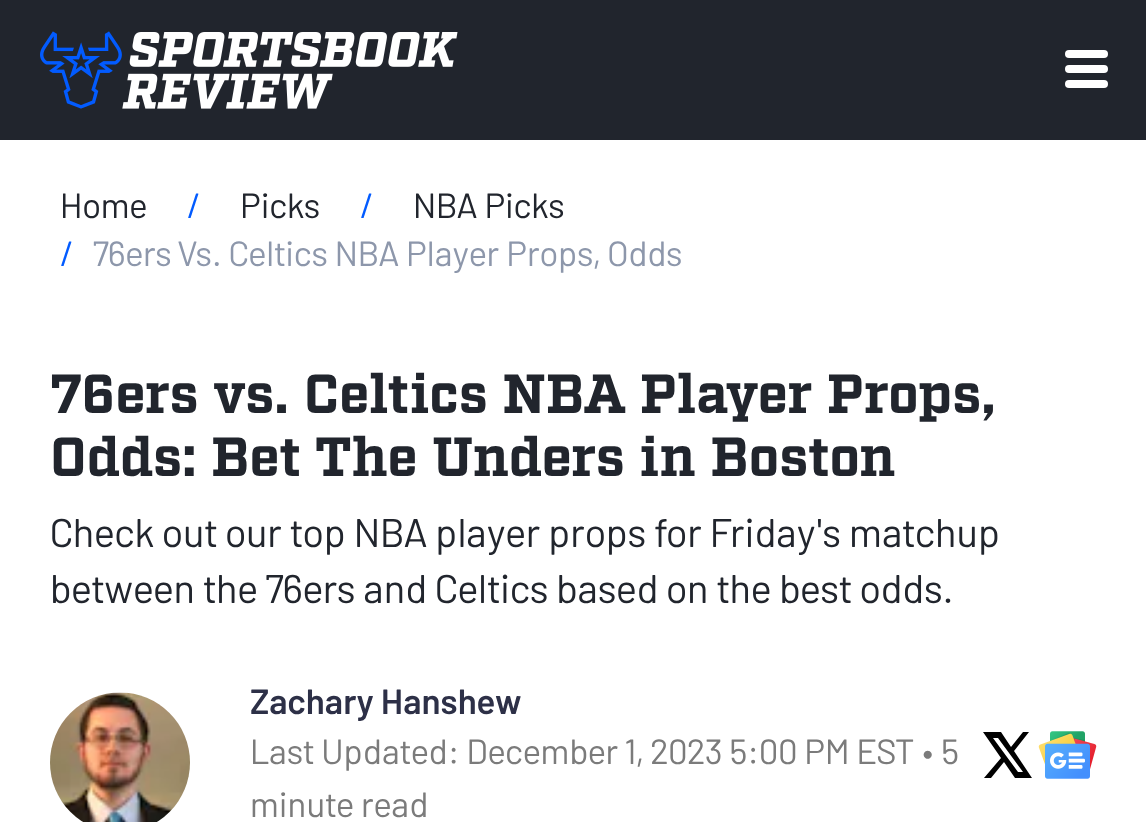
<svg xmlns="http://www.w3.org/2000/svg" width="1146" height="822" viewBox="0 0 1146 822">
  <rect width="100%" height="100%" fill="rgb(255,255,255)"/>
  <rect x="0" y="0" width="1146" height="140" fill="rgb(33,37,45)"/>
  <image x="40" y="31" width="418" height="78" href="pic1.png"/>
  <rect x="1065" y="50" width="43" height="8" rx="4" fill="rgb(255,255,255)"/>
  <rect x="1065" y="65" width="43" height="8" rx="4" fill="rgb(255,255,255)"/>
  <rect x="1065" y="80" width="43" height="8" rx="4" fill="rgb(255,255,255)"/>
  <text x="60" y="218" font-family="Barlow" font-size="35" fill="rgb(33,37,45)">Home</text>
  <text x="187" y="218" font-family="Barlow" font-size="35" fill="rgb(2,91,255)">/</text>
  <text x="240" y="218" font-family="Barlow" font-size="35" fill="rgb(33,37,45)">Picks</text>
  <text x="360" y="218" font-family="Barlow" font-size="35" fill="rgb(2,91,255)">/</text>
  <text x="413" y="218" font-family="Barlow" font-size="35" fill="rgb(33,37,45)">NBA Picks</text>
  <text x="60" y="266" font-family="Barlow" font-size="35" fill="rgb(2,91,255)">/</text>
  <text x="93" y="266" font-family="Barlow" font-size="35" fill="rgb(141,151,171)">76ers Vs. Celtics NBA Player Props, Odds</text>
  <g font-family="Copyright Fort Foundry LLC" font-size="55" font-weight="bold" fill="rgb(33,37,45)">
    <text>
      <tspan x="50" y="413">76ers vs. Celtics NBA Player Props,</tspan>
      <tspan x="50" y="476">Odds: Bet The Unders in Boston</tspan>
    </text>
  </g>
  <g font-family="Barlow" font-size="40" fill="rgb(33,37,45)">
    <text>
      <tspan x="50" y="547">Check out our top NBA player props for Friday's matchup</tspan>
      <tspan x="50" y="603">between the 76ers and Celtics based on the best odds.</tspan>
    </text>
  </g>
  <image x="50" y="692" width="140" height="130" href="pic2.png"/>
  <text x="250" y="714" font-family="Barlow" font-size="35" font-weight="600" fill="rgb(45,48,71)">Zachary Hanshew</text>
  <g font-family="Barlow" font-size="35" fill="rgb(123,123,123)">
    <text>
      <tspan x="250" y="764">Last Updated: December 1, 2023 5:00 PM EST • 5</tspan>
      <tspan x="250" y="817">minute read</tspan>
    </text>
  </g>
  <path d="M983 732L1001 758L984 778H991L1004 762L1015 778H1032L1014 751L1029 732H1023L1011 747L1001 732ZM993 738H998L1023 772H1018Z" fill="rgb(0,0,0)"/>
  <image x="1038" y="731" width="59" height="48" href="pic3.png"/>
</svg>
